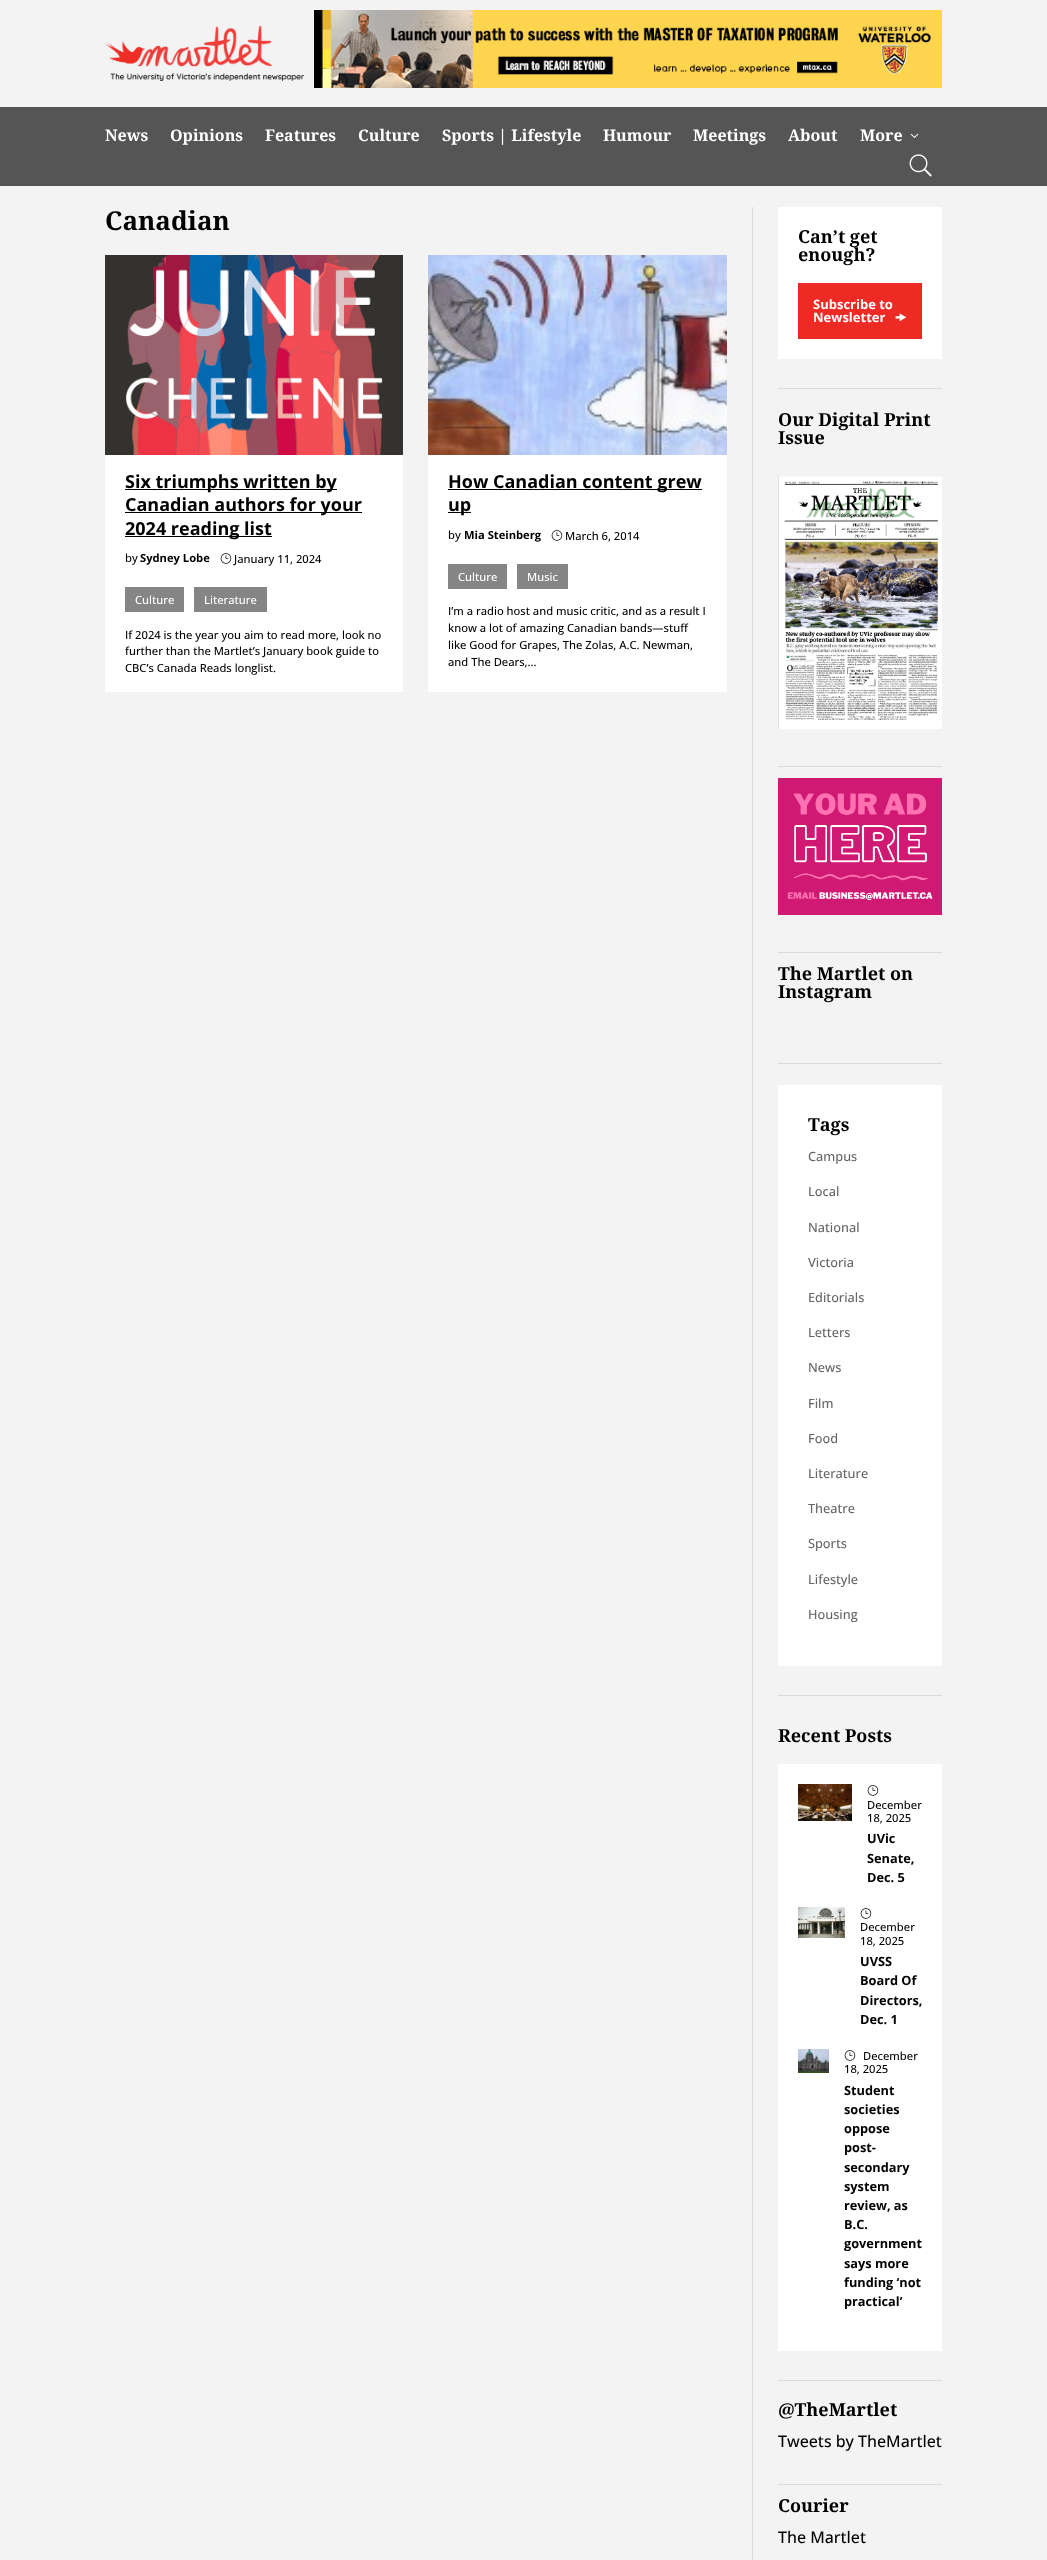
<svg xmlns="http://www.w3.org/2000/svg" width="1047" height="2560" viewBox="0 0 1047 2560">
  <style>*{font-kerning:none!important;font-variant-ligatures:none!important}</style>
  <rect width="100%" height="100%" fill="rgb(243,243,243)"/>
  <image x="105" y="26" width="200" height="55" href="pic1.png"/>
  <image x="314" y="10" width="628" height="78" href="pic2.png"/>
  <rect x="0" y="107" width="1047" height="79" fill="rgb(85,85,85)"/>
  <g font-family="Noto Serif" font-size="16" font-weight="bold" fill="rgb(255,255,255)">
    <text x="105" y="141">News</text>
    <text x="170" y="141">Opinions</text>
    <text x="265" y="141">Features</text>
    <text x="358" y="141">Culture</text>
    <text x="442" y="141">Sports | Lifestyle</text>
    <text x="603" y="141">Humour</text>
    <text x="693" y="141">Meetings</text>
    <text x="788" y="141">About</text>
    <text x="860" y="141">More</text>
  </g>
  <image x="910" y="133" width="9" height="5" href="pic3.png"/>
  <image x="909" y="154" width="23" height="23" href="pic4.png"/>
  <text x="105" y="230" font-family="Noto Serif" font-size="26" font-weight="bold" fill="rgb(0,0,0)">Canadian</text>
  <rect x="105" y="455" width="298" height="237" fill="rgb(255,255,255)"/>
  <image x="105" y="255" width="298" height="200" href="pic5.png"/>
  <rect x="125" y="489" width="212" height="1" fill="rgb(0,0,0)"/>
  <text x="125" y="488" font-family="Open Sans" font-size="18" font-weight="bold" fill="rgb(0,0,0)">Six triumphs written by</text>
  <rect x="125" y="512" width="237" height="1" fill="rgb(0,0,0)"/>
  <text x="125" y="511" font-family="Open Sans" font-size="18" font-weight="bold" fill="rgb(0,0,0)">Canadian authors for your</text>
  <rect x="125" y="536" width="147" height="1" fill="rgb(0,0,0)"/>
  <text x="125" y="535" font-family="Open Sans" font-size="18" font-weight="bold" fill="rgb(0,0,0)">2024 reading list</text>
  <text x="125" y="562" font-family="Open Sans" font-size="11.2" font-weight="500" fill="rgb(0,0,0)">by</text>
  <text x="140" y="562" font-family="Open Sans" font-size="11.2" font-weight="bold" fill="rgb(0,0,0)">Sydney Lobe</text>
  <image x="220" y="553" width="12" height="11" href="pic6.png"/>
  <text x="234" y="563" font-family="Open Sans" font-size="11.2" font-weight="500" fill="rgb(0,0,0)">January 11, 2024</text>
  <rect x="125" y="587" width="59" height="25" fill="rgb(133,133,133)"/>
  <text x="135" y="604" font-family="Open Sans" font-size="11.2" font-weight="500" fill="rgb(255,255,255)">Culture</text>
  <rect x="194" y="587" width="73" height="25" fill="rgb(133,133,133)"/>
  <text x="204" y="604" font-family="Open Sans" font-size="11.2" font-weight="500" fill="rgb(255,255,255)">Literature</text>
  <g font-family="Open Sans" font-size="11.2" font-weight="500" fill="rgb(0,0,0)">
    <text>
      <tspan x="125" y="639">If 2024 is the year you aim to read more, look no</tspan>
      <tspan x="125" y="655">further than the Martlet’s January book guide to</tspan>
      <tspan x="125" y="672">CBC’s Canada Reads longlist.</tspan>
    </text>
  </g>
  <rect x="428" y="455" width="299" height="237" fill="rgb(255,255,255)"/>
  <image x="428" y="255" width="299" height="200" href="pic7.png"/>
  <rect x="448" y="489" width="254" height="1" fill="rgb(0,0,0)"/>
  <text x="448" y="488" font-family="Open Sans" font-size="18" font-weight="bold" fill="rgb(0,0,0)">How Canadian content grew</text>
  <rect x="448" y="512" width="23" height="1" fill="rgb(0,0,0)"/>
  <text x="448" y="511" font-family="Open Sans" font-size="18" font-weight="bold" fill="rgb(0,0,0)">up</text>
  <text x="448" y="539" font-family="Open Sans" font-size="11.2" font-weight="500" fill="rgb(0,0,0)">by</text>
  <text x="464" y="539" font-family="Open Sans" font-size="11.2" font-weight="bold" fill="rgb(0,0,0)">Mia Steinberg</text>
  <image x="551" y="530" width="12" height="11" href="pic6.png"/>
  <text x="565" y="540" font-family="Open Sans" font-size="11.2" font-weight="500" fill="rgb(0,0,0)">March 6, 2014</text>
  <rect x="448" y="564" width="59" height="25" fill="rgb(133,133,133)"/>
  <text x="458" y="581" font-family="Open Sans" font-size="11.2" font-weight="500" fill="rgb(255,255,255)">Culture</text>
  <rect x="517" y="564" width="51" height="25" fill="rgb(133,133,133)"/>
  <text x="527" y="581" font-family="Open Sans" font-size="11.2" font-weight="500" fill="rgb(255,255,255)">Music</text>
  <g font-family="Open Sans" font-size="11.2" font-weight="500" fill="rgb(0,0,0)">
    <text>
      <tspan x="448" y="615">I’m a radio host and music critic, and as a result I</tspan>
      <tspan x="448" y="632">know a lot of amazing Canadian bands—stuff</tspan>
      <tspan x="448" y="649">like Good for Grapes, The Zolas, A.C. Newman,</tspan>
      <tspan x="448" y="666">and The Dears,…</tspan>
    </text>
  </g>
  <rect x="752" y="207" width="1" height="2353" fill="rgb(219,219,219)"/>
  <rect x="778" y="207" width="164" height="152" fill="rgb(255,255,255)"/>
  <g font-family="Noto Serif" font-size="18" font-weight="bold" fill="rgb(0,0,0)">
    <text>
      <tspan x="798" y="243">Can’t get</tspan>
      <tspan x="798" y="261">enough?</tspan>
    </text>
  </g>
  <rect x="798" y="283" width="124" height="56" fill="rgb(238,42,36)"/>
  <g font-family="Open Sans" font-size="13" font-weight="bold" fill="rgb(255,255,255)">
    <text>
      <tspan x="813" y="309">Subscribe to</tspan>
      <tspan x="813" y="322">Newsletter</tspan>
    </text>
  </g>
  <text x="895" y="322" font-family="'Noto Sans Symbols 2'" font-size="13" font-weight="bold" fill="rgb(255,255,255)">🠞</text>
  <rect x="778" y="388" width="164" height="1" fill="rgb(219,219,219)"/>
  <g font-family="Noto Serif" font-size="18" font-weight="bold" fill="rgb(0,0,0)">
    <text>
      <tspan x="778" y="426">Our Digital Print</tspan>
      <tspan x="778" y="444">Issue</tspan>
    </text>
  </g>
  <image x="778" y="476" width="164" height="253" href="pic8.png"/>
  <rect x="778" y="766" width="164" height="1" fill="rgb(219,219,219)"/>
  <image x="778" y="778" width="164" height="137" href="pic9.png"/>
  <rect x="778" y="952" width="164" height="1" fill="rgb(219,219,219)"/>
  <g font-family="Noto Serif" font-size="18" font-weight="bold" fill="rgb(0,0,0)">
    <text>
      <tspan x="778" y="980">The Martlet on</tspan>
      <tspan x="778" y="998">Instagram</tspan>
    </text>
  </g>
  <rect x="778" y="1063" width="164" height="1" fill="rgb(219,219,219)"/>
  <rect x="778" y="1085" width="164" height="581" fill="rgb(255,255,255)"/>
  <text x="808" y="1131" font-family="Noto Serif" font-size="18" font-weight="bold" fill="rgb(0,0,0)">Tags</text>
  <g font-family="Open Sans" font-size="12.75" font-weight="500" fill="rgb(102,102,102)">
    <text x="808" y="1161">Campus</text>
    <text x="808" y="1196">Local</text>
    <text x="808" y="1232">National</text>
    <text x="808" y="1267">Victoria</text>
    <text x="808" y="1302">Editorials</text>
    <text x="808" y="1337">Letters</text>
    <text x="808" y="1372">News</text>
    <text x="808" y="1408">Film</text>
    <text x="808" y="1443">Food</text>
    <text x="808" y="1478">Literature</text>
    <text x="808" y="1513">Theatre</text>
    <text x="808" y="1548">Sports</text>
    <text x="808" y="1584">Lifestyle</text>
    <text x="808" y="1619">Housing</text>
  </g>
  <rect x="778" y="1695" width="164" height="1" fill="rgb(219,219,219)"/>
  <text x="778" y="1742" font-family="Noto Serif" font-size="18" font-weight="bold" fill="rgb(0,0,0)">Recent Posts</text>
  <rect x="778" y="1764" width="164" height="587" fill="rgb(255,255,255)"/>
  <image x="798" y="1784" width="54" height="37" href="pic10.png"/>
  <image x="867" y="1785" width="12" height="11" href="pic6.png"/>
  <g font-family="Open Sans" font-size="11.2" font-weight="500" fill="rgb(0,0,0)">
    <text>
      <tspan x="867" y="1809">December</tspan>
      <tspan x="867" y="1822">18, 2025</tspan>
    </text>
  </g>
  <g font-family="Open Sans" font-size="12.75" font-weight="bold" fill="rgb(0,0,0)">
    <text>
      <tspan x="867" y="1843">UVic</tspan>
      <tspan x="867" y="1863">Senate,</tspan>
      <tspan x="867" y="1882">Dec. 5</tspan>
    </text>
  </g>
  <image x="798" y="1907" width="47" height="31" href="pic11.png"/>
  <image x="860" y="1908" width="12" height="11" href="pic6.png"/>
  <g font-family="Open Sans" font-size="11.2" font-weight="500" fill="rgb(0,0,0)">
    <text>
      <tspan x="860" y="1931">December</tspan>
      <tspan x="860" y="1945">18, 2025</tspan>
    </text>
  </g>
  <g font-family="Open Sans" font-size="12.75" font-weight="bold" fill="rgb(0,0,0)">
    <text>
      <tspan x="860" y="1966">UVSS</tspan>
      <tspan x="860" y="1985">Board Of</tspan>
      <tspan x="860" y="2005">Directors,</tspan>
      <tspan x="860" y="2024">Dec. 1</tspan>
    </text>
  </g>
  <image x="798" y="2049" width="31" height="24" href="pic12.png"/>
  <image x="844" y="2050" width="12" height="11" href="pic6.png"/>
  <g font-family="Open Sans" font-size="11.2" font-weight="500" fill="rgb(0,0,0)">
    <text x="863" y="2060">December</text>
    <text x="844" y="2073">18, 2025</text>
  </g>
  <g font-family="Open Sans" font-size="12.75" font-weight="bold" fill="rgb(0,0,0)">
    <text>
      <tspan x="844" y="2095">Student</tspan>
      <tspan x="844" y="2114">societies</tspan>
      <tspan x="844" y="2133">oppose</tspan>
      <tspan x="844" y="2152">post-</tspan>
      <tspan x="844" y="2172">secondary</tspan>
      <tspan x="844" y="2191">system</tspan>
      <tspan x="844" y="2210">review, as</tspan>
      <tspan x="844" y="2229">B.C.</tspan>
      <tspan x="844" y="2248">government</tspan>
      <tspan x="844" y="2268">says more</tspan>
      <tspan x="844" y="2287">funding ‘not</tspan>
      <tspan x="844" y="2306">practical’</tspan>
    </text>
  </g>
  <rect x="778" y="2380" width="164" height="1" fill="rgb(219,219,219)"/>
  <text x="778" y="2416" font-family="Noto Serif" font-size="18" font-weight="bold" fill="rgb(0,0,0)">@TheMartlet</text>
  <text x="778" y="2447" font-family="Open Sans" font-size="16" font-weight="500" fill="rgb(0,0,0)">Tweets by TheMartlet</text>
  <rect x="778" y="2484" width="164" height="1" fill="rgb(219,219,219)"/>
  <text x="778" y="2512" font-family="Noto Serif" font-size="18" font-weight="bold" fill="rgb(0,0,0)">Courier</text>
  <text x="778" y="2543" font-family="Open Sans" font-size="16" font-weight="500" fill="rgb(0,0,0)">The Martlet</text>
</svg>
